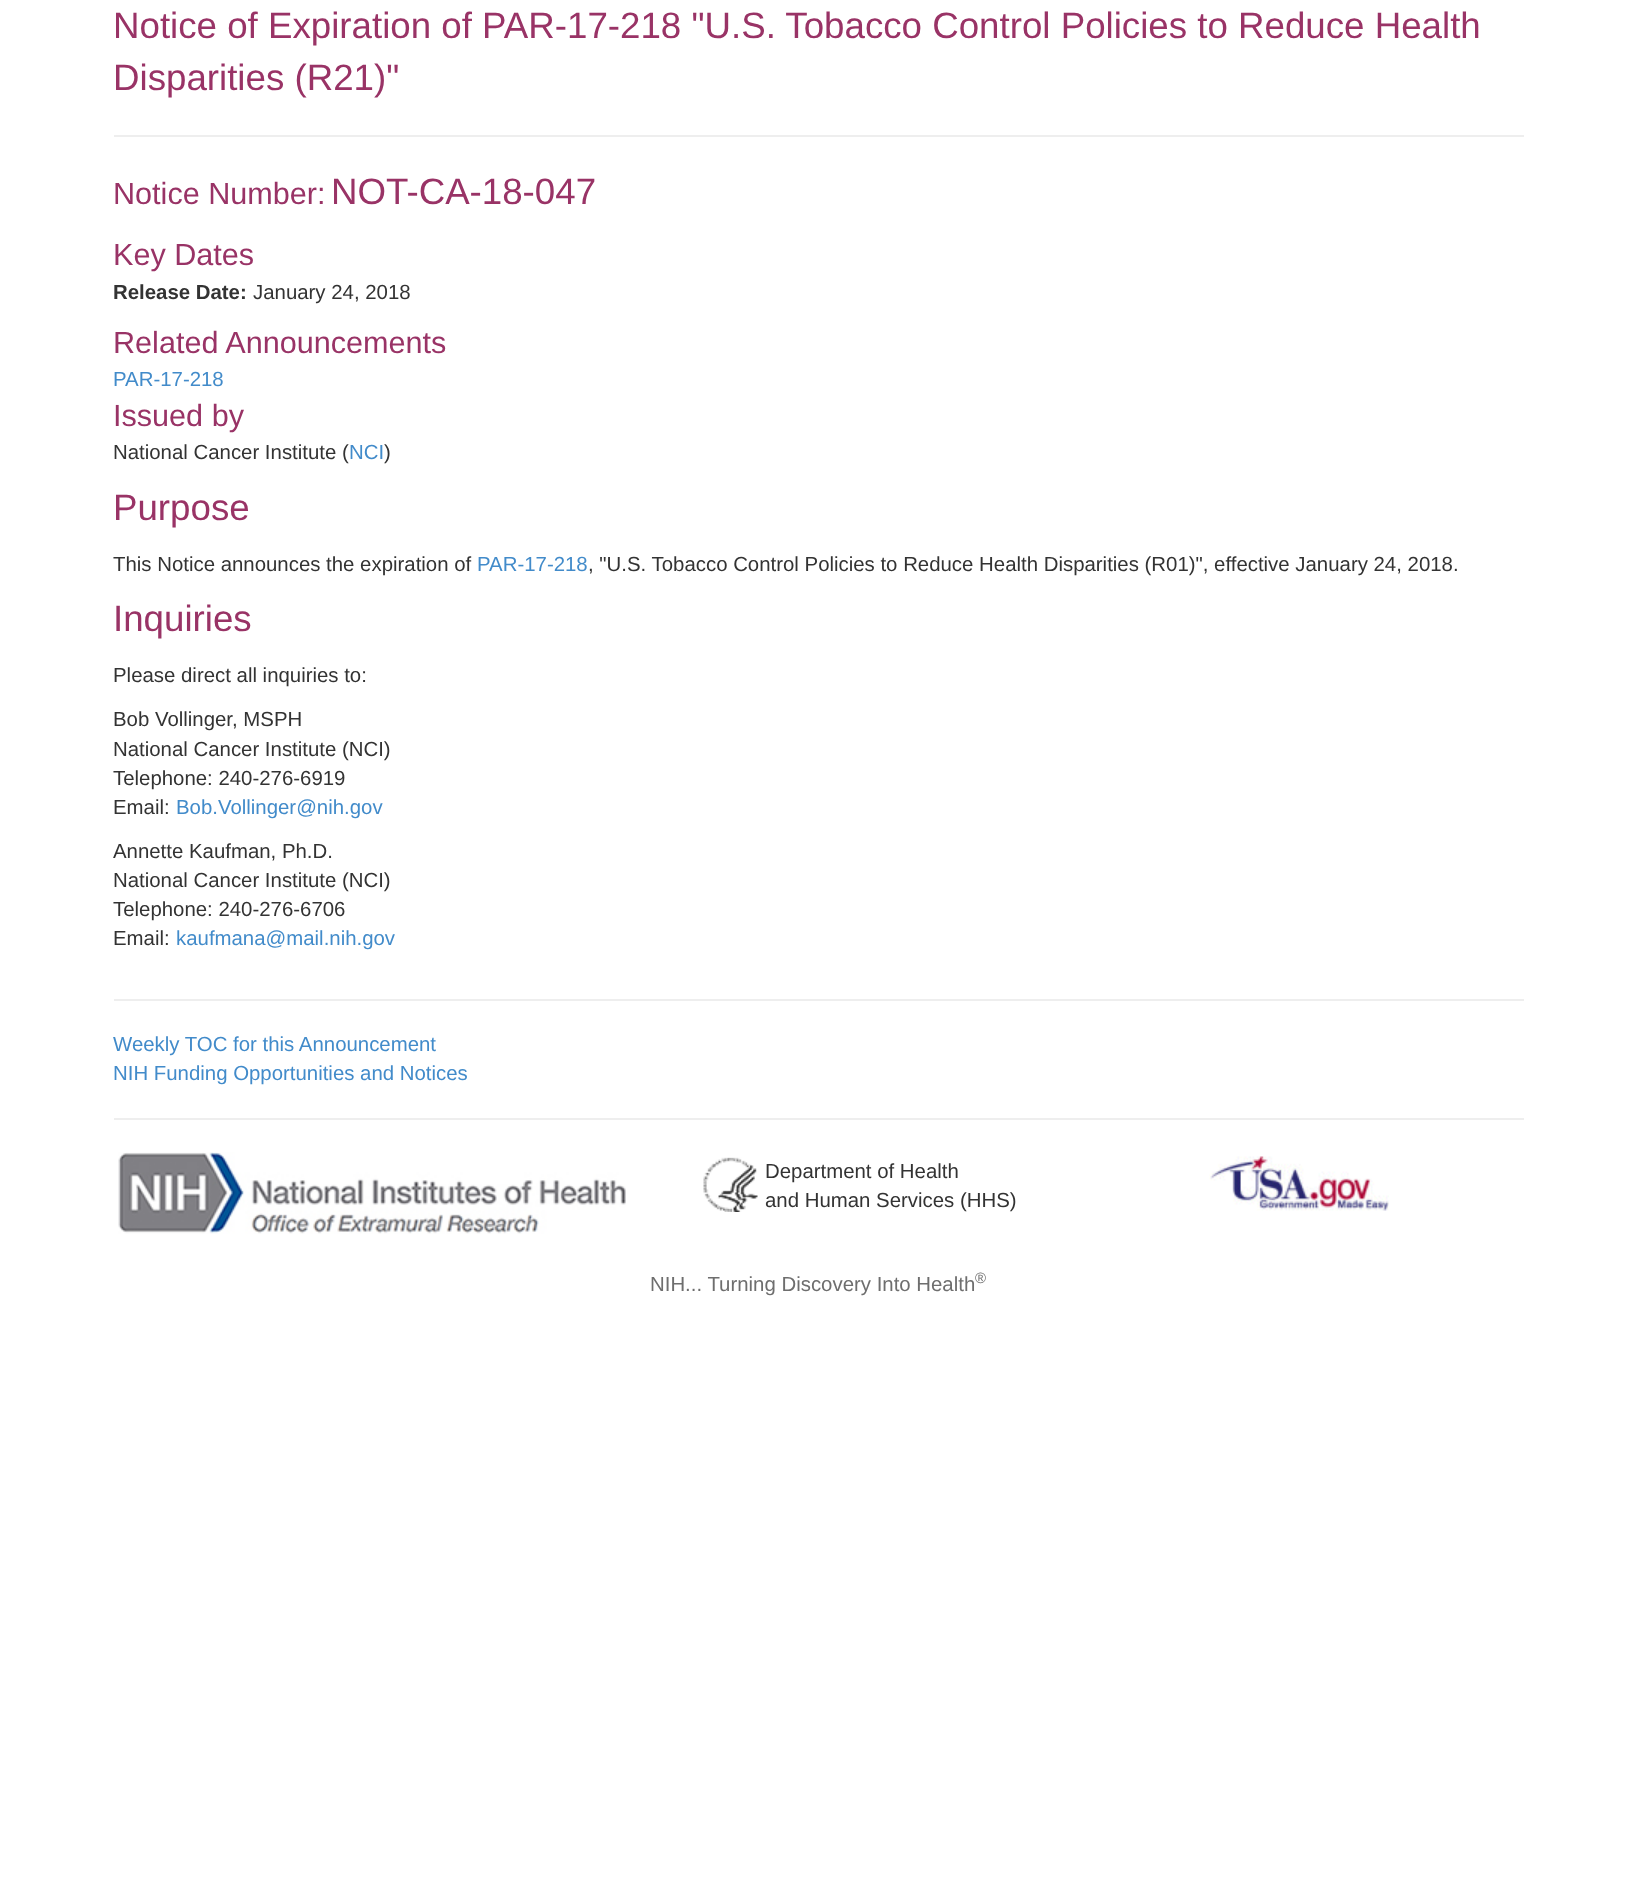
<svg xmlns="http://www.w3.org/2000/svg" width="1636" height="1903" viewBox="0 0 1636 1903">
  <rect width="100%" height="100%" fill="rgb(255,255,255)"/>
  <g font-family="Liberation Sans" font-size="36.7" fill="rgb(153,51,102)">
    <text>
      <tspan x="113" y="38">Notice of Expiration of PAR-17-218 "U.S. Tobacco Control Policies to Reduce Health</tspan>
      <tspan x="113" y="90">Disparities (R21)"</tspan>
    </text>
  </g>
  <rect x="114" y="135" width="1410" height="2" fill="rgb(238,238,238)"/>
  <text x="113" y="204" font-family="Liberation Sans" font-size="30.6" fill="rgb(153,51,102)">Notice Number:</text>
  <text x="331" y="204" font-family="Liberation Sans" font-size="36.7" fill="rgb(153,51,102)">NOT-CA-18-047</text>
  <text x="113" y="265" font-family="Liberation Sans" font-size="30.6" fill="rgb(153,51,102)">Key Dates</text>
  <text x="113" y="299" font-family="Liberation Sans" font-size="20.4" font-weight="bold" fill="rgb(51,51,51)">Release Date:</text>
  <text x="253" y="299" font-family="Liberation Sans" font-size="20.4" fill="rgb(51,51,51)">January 24, 2018</text>
  <text x="113" y="353" font-family="Liberation Sans" font-size="30.6" fill="rgb(153,51,102)">Related Announcements</text>
  <text x="113" y="386" font-family="Liberation Sans" font-size="20.4" fill="rgb(66,139,202)">PAR-17-218</text>
  <text x="113" y="426" font-family="Liberation Sans" font-size="30.6" fill="rgb(153,51,102)">Issued by</text>
  <text x="113" y="459" font-family="Liberation Sans" font-size="20.4" fill="rgb(51,51,51)">National Cancer Institute (</text>
  <text x="349" y="459" font-family="Liberation Sans" font-size="20.4" fill="rgb(66,139,202)">NCI</text>
  <text x="384" y="459" font-family="Liberation Sans" font-size="20.4" fill="rgb(51,51,51)">)</text>
  <text x="113" y="520" font-family="Liberation Sans" font-size="36.7" fill="rgb(153,51,102)">Purpose</text>
  <text x="113" y="571" font-family="Liberation Sans" font-size="20.4" fill="rgb(51,51,51)">This Notice announces the expiration of</text>
  <text x="477" y="571" font-family="Liberation Sans" font-size="20.4" fill="rgb(66,139,202)">PAR-17-218</text>
  <text x="588" y="571" font-family="Liberation Sans" font-size="20.4" fill="rgb(51,51,51)">, "U.S. Tobacco Control Policies to Reduce Health Disparities (R01)", effective January 24, 2018.</text>
  <text x="113" y="631" font-family="Liberation Sans" font-size="36.7" fill="rgb(153,51,102)">Inquiries</text>
  <g font-family="Liberation Sans" font-size="20.4" fill="rgb(51,51,51)">
    <text x="113" y="682">Please direct all inquiries to:</text>
    <text>
      <tspan x="113" y="726">Bob Vollinger, MSPH</tspan>
      <tspan x="113" y="756">National Cancer Institute (NCI)</tspan>
      <tspan x="113" y="785">Telephone: 240-276-6919</tspan>
      <tspan x="113" y="814">Email:</tspan>
    </text>
  </g>
  <text x="176" y="814" font-family="Liberation Sans" font-size="20.4" fill="rgb(66,139,202)">Bob.Vollinger@nih.gov</text>
  <g font-family="Liberation Sans" font-size="20.4" fill="rgb(51,51,51)">
    <text>
      <tspan x="113" y="858">Annette Kaufman, Ph.D.</tspan>
      <tspan x="113" y="887">National Cancer Institute (NCI)</tspan>
      <tspan x="113" y="916">Telephone: 240-276-6706</tspan>
      <tspan x="113" y="945">Email:</tspan>
    </text>
  </g>
  <text x="176" y="945" font-family="Liberation Sans" font-size="20.4" fill="rgb(66,139,202)">kaufmana@mail.nih.gov</text>
  <rect x="114" y="999" width="1410" height="2" fill="rgb(238,238,238)"/>
  <g font-family="Liberation Sans" font-size="20.4" fill="rgb(66,139,202)">
    <text>
      <tspan x="113" y="1051">Weekly TOC for this Announcement</tspan>
      <tspan x="113" y="1080">NIH Funding Opportunities and Notices</tspan>
    </text>
  </g>
  <rect x="114" y="1118" width="1410" height="2" fill="rgb(238,238,238)"/>
  <image x="118" y="1152" width="508" height="82" href="pic1.png"/>
  <image x="703" y="1157" width="55" height="55" href="pic2.png"/>
  <g font-family="Liberation Sans" font-size="20.4" fill="rgb(51,51,51)">
    <text>
      <tspan x="765" y="1178">Department of Health</tspan>
      <tspan x="765" y="1207">and Human Services (HHS)</tspan>
    </text>
  </g>
  <image x="1209" y="1156" width="180" height="55" href="pic3.png"/>
  <text x="650" y="1291" font-family="Liberation Sans" font-size="20.4" fill="rgb(110,110,110)">NIH... Turning Discovery Into Health</text>
  <text x="975" y="1283" font-family="Liberation Sans" font-size="15" fill="rgb(110,110,110)">®</text>
</svg>
